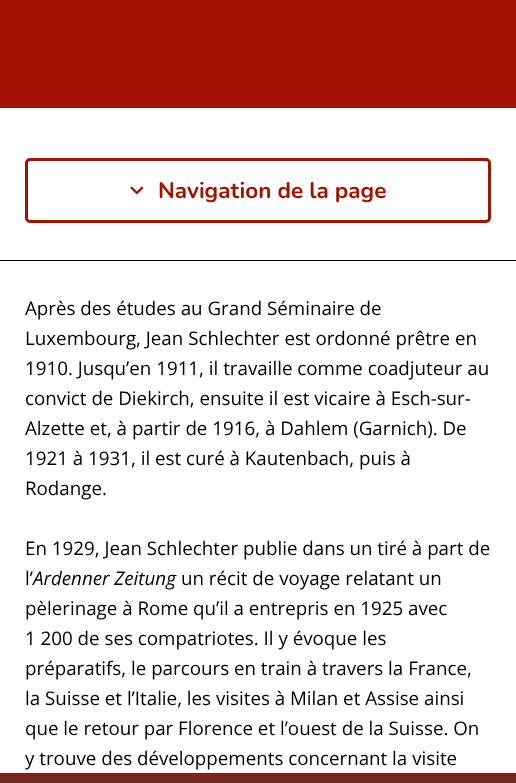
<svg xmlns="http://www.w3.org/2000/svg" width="516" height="783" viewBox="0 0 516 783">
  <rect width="100%" height="100%" fill="rgb(255,255,255)"/>
  <rect x="0" y="0" width="516" height="108" fill="rgb(161,19,0)"/>
  <rect x="0" y="260" width="516" height="1" fill="rgb(0,0,0)"/>
  <rect x="26.5" y="159.5" width="463" height="62" rx="3.5" fill="none" stroke="rgb(161,19,0)" stroke-width="3"/>
  <image x="130" y="186" width="14" height="9" href="pic1.png"/>
  <text x="158" y="198" font-family="Nunito" font-size="22.5" font-weight="bold" fill="rgb(161,19,0)">Navigation de la page</text>
  <g font-family="Open Sans" font-size="18.75" fill="rgb(0,0,0)">
    <text>
      <tspan x="25" y="315">Après des études au Grand Séminaire de</tspan>
      <tspan x="25" y="345">Luxembourg, Jean Schlechter est ordonné prêtre en</tspan>
      <tspan x="25" y="375">1910. Jusqu’en 1911, il travaille comme coadjuteur au</tspan>
      <tspan x="25" y="405">convict de Diekirch, ensuite il est vicaire à Esch-sur-</tspan>
      <tspan x="25" y="435">Alzette et, à partir de 1916, à Dahlem (Garnich). De</tspan>
      <tspan x="25" y="465">1921 à 1931, il est curé à Kautenbach, puis à</tspan>
      <tspan x="25" y="495">Rodange.</tspan>
    </text>
    <text>
      <tspan x="25" y="555">En 1929, Jean Schlechter publie dans un tiré à part de</tspan>
      <tspan x="25" y="585">l’</tspan>
    </text>
  </g>
  <text x="33" y="585" font-family="Open Sans" font-size="18.75" font-style="italic" fill="rgb(0,0,0)">Ardenner Zeitung</text>
  <g font-family="Open Sans" font-size="18.75" fill="rgb(0,0,0)">
    <text x="181" y="585">un récit de voyage relatant un</text>
    <text>
      <tspan x="25" y="615">pèlerinage à Rome qu’il a entrepris en 1925 avec</tspan>
      <tspan x="25" y="645">1 200 de ses compatriotes. Il y évoque les</tspan>
      <tspan x="25" y="675">préparatifs, le parcours en train à travers la France,</tspan>
      <tspan x="25" y="705">la Suisse et l’Italie, les visites à Milan et Assise ainsi</tspan>
      <tspan x="25" y="735">que le retour par Florence et l’ouest de la Suisse. On</tspan>
      <tspan x="25" y="765">y trouve des développements concernant la visite</tspan>
    </text>
  </g>
  <rect x="0" y="776" width="516" height="7" fill="rgb(107,44,40)"/>
  <rect x="0" y="773" width="516" height="3" fill="rgb(161,19,0)"/>
</svg>
